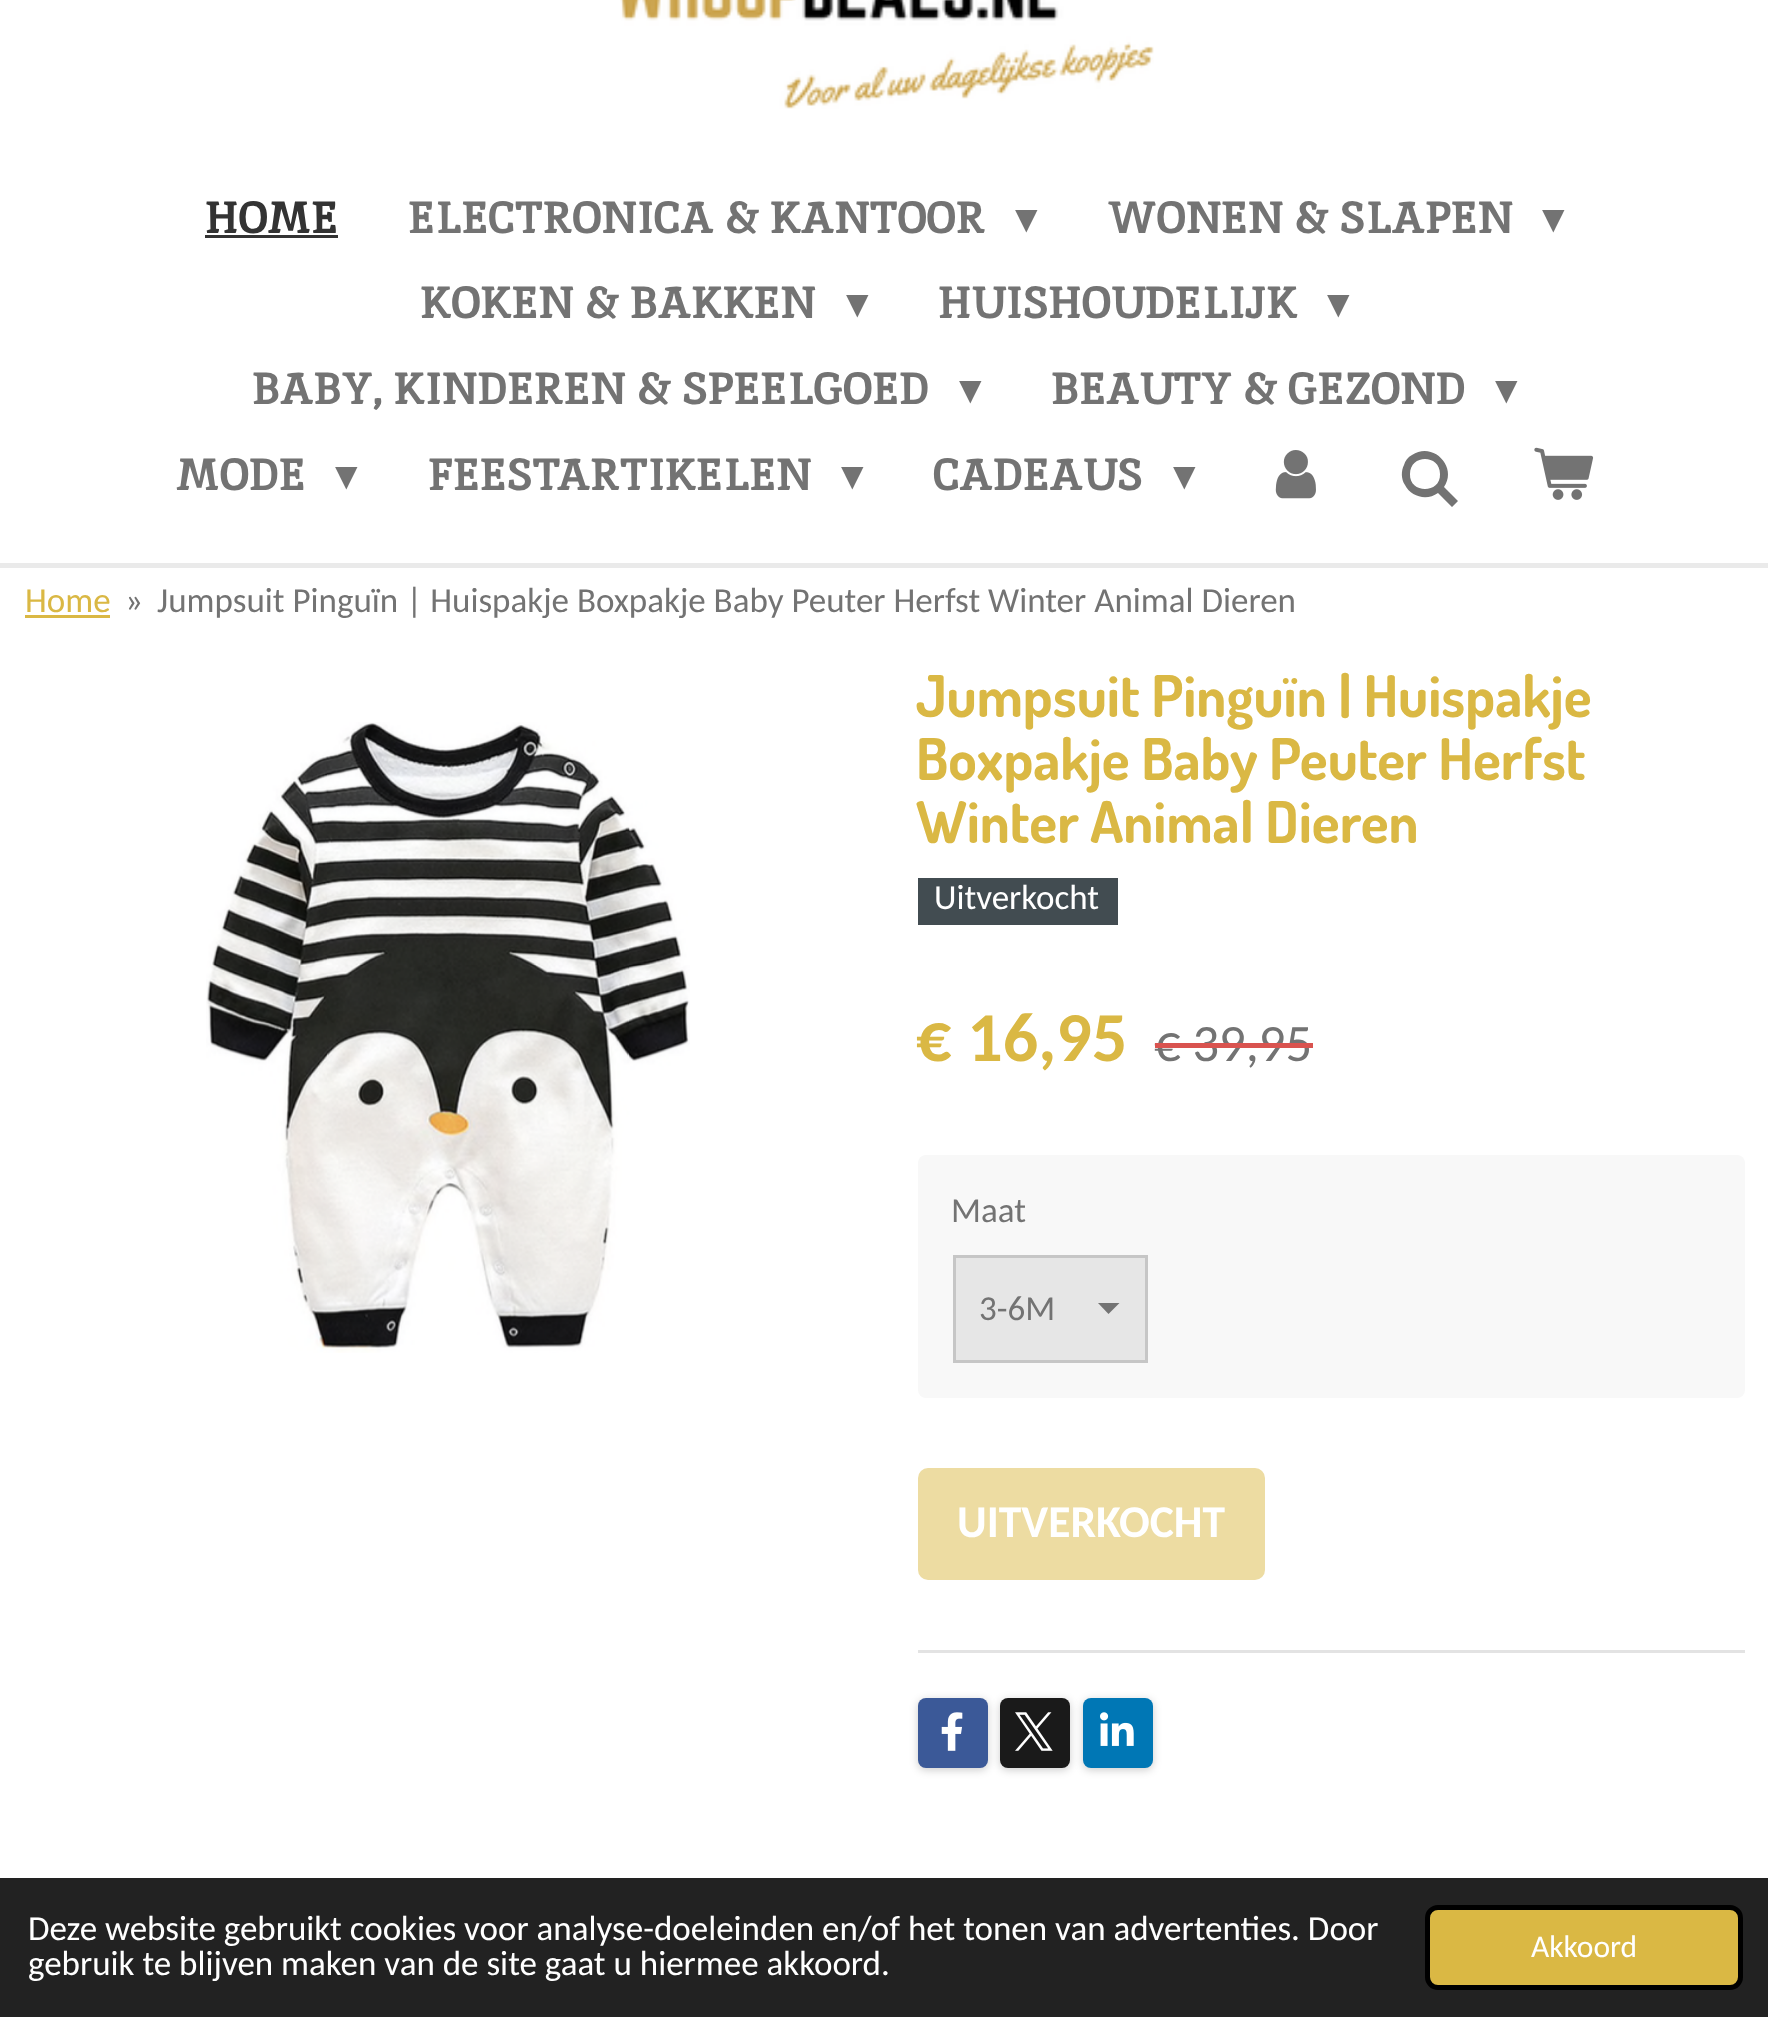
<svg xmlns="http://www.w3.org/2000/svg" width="1768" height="2017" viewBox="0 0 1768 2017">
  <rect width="100%" height="100%" fill="rgb(255,255,255)"/>
  <image x="620" y="0" width="534" height="109" href="pic1.png"/>
  <text x="205" y="233" font-family="Inika" font-size="45" font-weight="bold" fill="rgb(51,51,51)">HOME</text>
  <rect x="205" y="235" width="133" height="3" fill="rgb(51,51,51)"/>
  <text x="408" y="233" font-family="Inika" font-size="45" font-weight="bold" fill="rgb(115,115,115)">ELECTRONICA &amp; KANTOOR</text>
  <text x="1015" y="233" font-family="DejaVu Sans" font-size="45" fill="rgb(115,115,115)">▾</text>
  <text x="1108" y="233" font-family="Inika" font-size="45" font-weight="bold" fill="rgb(115,115,115)">WONEN &amp; SLAPEN</text>
  <text x="1542" y="233" font-family="DejaVu Sans" font-size="45" fill="rgb(115,115,115)">▾</text>
  <text x="420" y="318" font-family="Inika" font-size="45" font-weight="bold" fill="rgb(115,115,115)">KOKEN &amp; BAKKEN</text>
  <text x="846" y="318" font-family="DejaVu Sans" font-size="45" fill="rgb(115,115,115)">▾</text>
  <text x="938" y="318" font-family="Inika" font-size="45" font-weight="bold" fill="rgb(115,115,115)">HUISHOUDELIJK</text>
  <text x="1327" y="318" font-family="DejaVu Sans" font-size="45" fill="rgb(115,115,115)">▾</text>
  <text x="252" y="404" font-family="Inika" font-size="45" font-weight="bold" fill="rgb(115,115,115)">BABY, KINDEREN &amp; SPEELGOED</text>
  <text x="959" y="404" font-family="DejaVu Sans" font-size="45" fill="rgb(115,115,115)">▾</text>
  <text x="1051" y="404" font-family="Inika" font-size="45" font-weight="bold" fill="rgb(115,115,115)">BEAUTY &amp; GEZOND</text>
  <text x="1495" y="404" font-family="DejaVu Sans" font-size="45" fill="rgb(115,115,115)">▾</text>
  <text x="176" y="490" font-family="Inika" font-size="45" font-weight="bold" fill="rgb(115,115,115)">MODE</text>
  <text x="335" y="490" font-family="DejaVu Sans" font-size="45" fill="rgb(115,115,115)">▾</text>
  <text x="428" y="490" font-family="Inika" font-size="45" font-weight="bold" fill="rgb(115,115,115)">FEESTARTIKELEN</text>
  <text x="841" y="490" font-family="DejaVu Sans" font-size="45" fill="rgb(115,115,115)">▾</text>
  <text x="933" y="490" font-family="Inika" font-size="45" font-weight="bold" fill="rgb(115,115,115)">CADEAUS</text>
  <text x="1173" y="490" font-family="DejaVu Sans" font-size="45" fill="rgb(115,115,115)">▾</text>
  <image x="1275" y="450" width="41" height="49" href="pic2.png"/>
  <path d="M1444 487L1458 501L1452 507L1438 493C1427 501 1411 497 1405 485C1401 479 1401 471 1404 465C1405 461 1408 457 1412 455C1433 441 1458 467 1444 487ZM1440 474C1440 454 1410 454 1410 474C1409 494 1441 494 1440 474Z" fill="rgb(115,115,115)"/>
  <image x="1534" y="447" width="60" height="53" href="pic3.png"/>
  <rect x="0" y="563" width="1768" height="5" fill="rgb(234,234,234)"/>
  <text x="25" y="612" font-family="Carlito" font-size="35" fill="rgb(218,184,68)">Home</text>
  <rect x="25" y="615" width="85" height="3" fill="rgb(218,184,68)"/>
  <g font-family="Carlito" font-size="35" fill="rgb(115,115,115)">
    <text x="125" y="612">»</text>
    <text x="157" y="612">Jumpsuit Pinguïn | Huispakje Boxpakje Baby Peuter Herfst Winter Animal Dieren</text>
  </g>
  <image x="206" y="722" width="484" height="631" href="pic4.png"/>
  <g font-family="Dosis" font-size="57.5" font-weight="bold" fill="rgb(218,184,68)">
    <text>
      <tspan x="916" y="717">Jumpsuit Pinguïn | Huispakje</tspan>
      <tspan x="916" y="780">Boxpakje Baby Peuter Herfst</tspan>
      <tspan x="916" y="843">Winter Animal Dieren</tspan>
    </text>
  </g>
  <rect x="918" y="878" width="200" height="47" fill="rgb(66,76,81)"/>
  <text x="934" y="909" font-family="Carlito" font-size="35" fill="rgb(255,255,255)">Uitverkocht</text>
  <text x="916" y="1061" font-family="Carlito" font-size="70" font-weight="bold" fill="rgb(218,184,68)">€ 16,95</text>
  <text x="1154" y="1061" font-family="Carlito" font-size="52.5" fill="rgb(115,115,115)">€ 39,95</text>
  <rect x="1155" y="1043" width="158" height="5" fill="rgb(217,83,79)"/>
  <rect x="918" y="1155" width="827" height="243" rx="8" fill="rgb(248,248,248)"/>
  <text x="951" y="1222" font-family="Carlito" font-size="35" fill="rgb(115,115,115)">Maat</text>
  <rect x="956" y="1258" width="189" height="102" fill="rgb(230,230,230)"/>
  <path d="M1108.5 1314L1098 1303H1119.5Z" fill="rgb(115,115,115)"/>
  <rect x="954.5" y="1256.5" width="192" height="105" fill="none" stroke="rgb(198,198,198)" stroke-width="3"/>
  <text x="979" y="1320" font-family="Carlito" font-size="35" fill="rgb(115,115,115)">3-6M</text>
  <rect x="918" y="1468" width="347" height="112" rx="10" fill="rgb(237,220,162)"/>
  <text x="957" y="1537" font-family="Carlito" font-size="45.5" font-weight="bold" fill="rgb(255,255,255)">UITVERKOCHT</text>
  <rect x="918" y="1650" width="827" height="3" fill="rgb(227,227,227)"/>
  <rect x="918" y="1700" width="70" height="70" rx="8" fill="rgba(0,0,0,0.2)" filter="blur(4px)"/>
  <rect x="918" y="1698" width="70" height="70" rx="8" fill="rgb(59,89,152)"/>
  <image x="941" y="1712" width="22" height="39" href="pic5.png"/>
  <rect x="1000" y="1700" width="70" height="70" rx="8" fill="rgba(0,0,0,0.2)" filter="blur(4px)"/>
  <rect x="1000" y="1698" width="70" height="70" rx="8" fill="rgb(26,26,26)"/>
  <image x="1015" y="1712" width="38" height="39" href="pic6.png"/>
  <rect x="1083" y="1700" width="70" height="70" rx="8" fill="rgba(0,0,0,0.2)" filter="blur(4px)"/>
  <rect x="1083" y="1698" width="70" height="70" rx="8" fill="rgb(0,119,181)"/>
  <image x="1100" y="1712" width="34" height="34" href="pic7.png"/>
  <rect x="0" y="1878" width="1768" height="139" fill="rgb(34,34,34)"/>
  <g font-family="Carlito" font-size="35" fill="rgb(255,255,255)">
    <text>
      <tspan x="28" y="1940">Deze website gebruikt cookies voor analyse-doeleinden en/of het tonen van advertenties. Door</tspan>
      <tspan x="28" y="1975">gebruik te blijven maken van de site gaat u hiermee akkoord.</tspan>
    </text>
  </g>
  <rect x="1427.5" y="1907.5" width="313" height="80" rx="10.5" fill="rgb(218,184,68)" stroke="rgb(0,0,0)" stroke-width="5"/>
  <text x="1531" y="1957" font-family="Carlito" font-size="31.5" fill="rgb(255,255,255)">Akkoord</text>
</svg>
